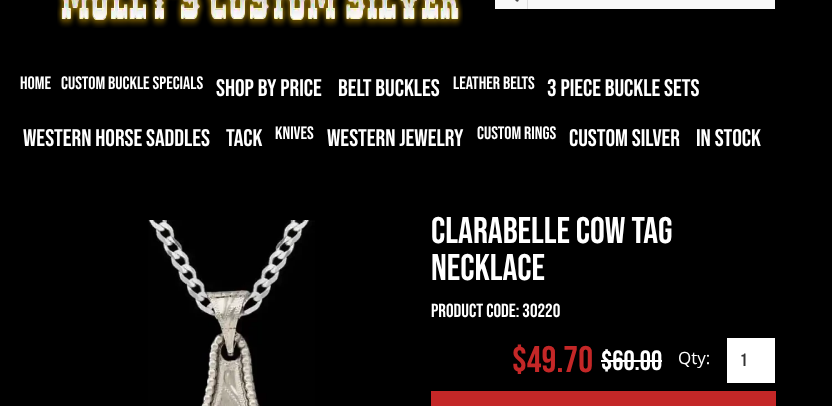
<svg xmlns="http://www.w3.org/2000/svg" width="832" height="406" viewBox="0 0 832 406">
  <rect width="100%" height="100%" fill="rgb(0,0,0)"/>
  <image x="57" y="0" width="406" height="28" href="pic1.png"/>
  <rect x="495" y="0" width="280" height="9" fill="rgb(248,248,248)"/>
  <rect x="527" y="0" width="1" height="9" fill="rgb(221,221,221)"/>
  <image x="515" y="0" width="4" height="2" href="pic2.png"/>
  <g font-family="Bebas Neue" font-size="18" fill="rgb(255,255,255)">
    <text x="20" y="89">Home</text>
    <text x="61" y="89">Custom Buckle Specials</text>
  </g>
  <g font-family="Bebas Neue" font-size="24" fill="rgb(255,255,255)">
    <text x="216" y="96">Shop By Price</text>
    <text x="338" y="96">Belt Buckles</text>
  </g>
  <text x="453" y="89" font-family="Bebas Neue" font-size="18" fill="rgb(255,255,255)">Leather Belts</text>
  <g font-family="Bebas Neue" font-size="24" fill="rgb(255,255,255)">
    <text x="547" y="96">3 Piece Buckle Sets</text>
    <text x="23" y="146">Western Horse Saddles</text>
    <text x="226" y="146">Tack</text>
  </g>
  <text x="275" y="139" font-family="Bebas Neue" font-size="18" fill="rgb(255,255,255)">Knives</text>
  <text x="327" y="146" font-family="Bebas Neue" font-size="24" fill="rgb(255,255,255)">Western Jewelry</text>
  <text x="477" y="139" font-family="Bebas Neue" font-size="18" fill="rgb(255,255,255)">Custom Rings</text>
  <g font-family="Bebas Neue" font-size="24" fill="rgb(255,255,255)">
    <text x="569" y="146">Custom Silver</text>
    <text x="696" y="146">IN STOCK</text>
  </g>
  <image x="148" y="220" width="167" height="186" href="pic3.png"/>
  <g font-family="Bebas Neue" font-size="37" fill="rgb(255,255,255)">
    <text>
      <tspan x="431" y="243">Clarabelle Cow Tag</tspan>
      <tspan x="431" y="280">Necklace</tspan>
    </text>
  </g>
  <text x="431" y="317" font-family="Bebas Neue" font-size="19" fill="rgb(255,255,255)">Product Code: 30220</text>
  <text x="512" y="372" font-family="Bebas Neue" font-size="37" fill="rgb(196,39,39)">$49.70</text>
  <text x="601" y="370" font-family="Bebas Neue" font-size="28" fill="rgb(255,255,255)">$60.00</text>
  <rect x="601" y="360" width="61" height="2" fill="rgb(255,255,255)"/>
  <text x="678" y="364" font-family="Open Sans" font-size="17" fill="rgb(255,255,255)">Qty:</text>
  <rect x="727" y="338" width="48" height="45" fill="rgb(255,255,255)"/>
  <text x="740" y="366" font-family="Bebas Neue" font-size="18" fill="rgb(51,51,51)">1</text>
  <rect x="431" y="391" width="345" height="15" fill="rgb(196,39,39)"/>
</svg>
